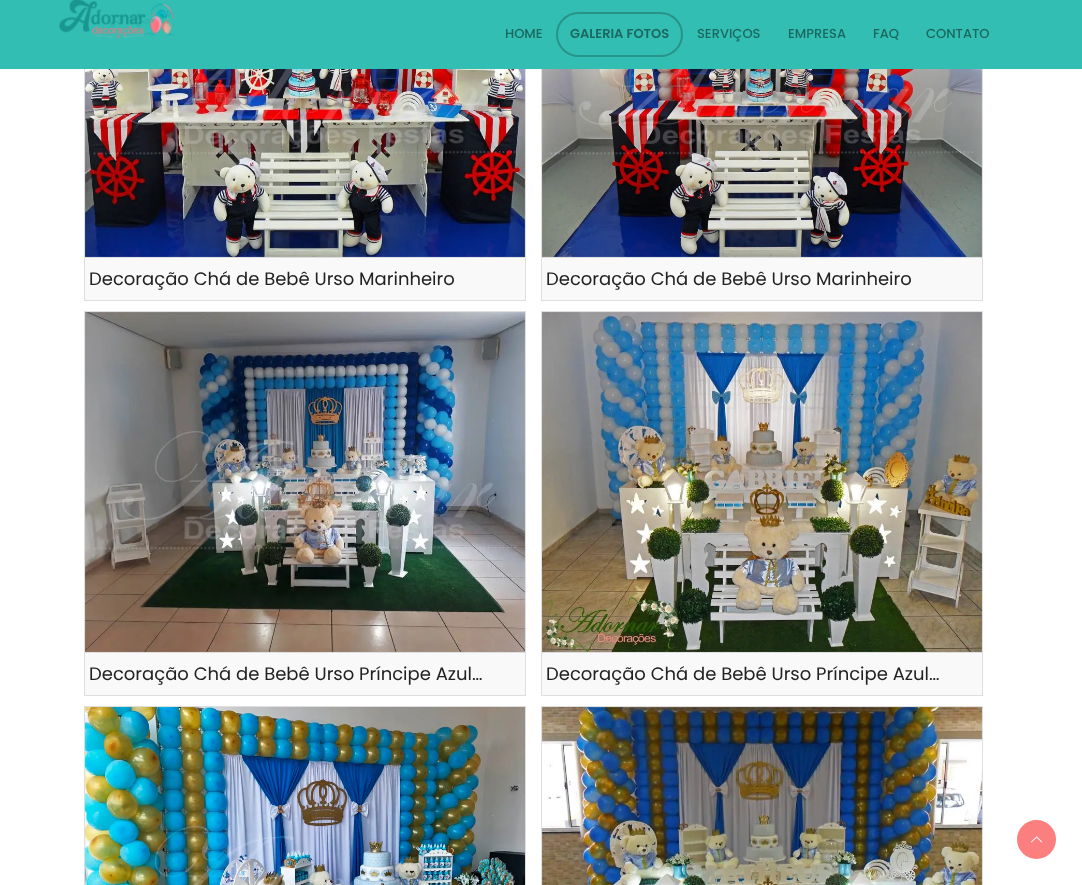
<svg xmlns="http://www.w3.org/2000/svg" width="1082" height="885" viewBox="0 0 1082 885">
  <rect width="100%" height="100%" fill="rgb(255,255,255)"/>
  <rect x="85" y="258" width="440" height="42" fill="rgb(249,249,249)"/>
  <rect x="84.5" y="-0.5" width="441" height="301" fill="none" stroke="rgb(222,222,222)"/>
  <rect x="542" y="258" width="440" height="42" fill="rgb(249,249,249)"/>
  <rect x="541.5" y="-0.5" width="441" height="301" fill="none" stroke="rgb(222,222,222)"/>
  <rect x="0" y="0" width="1082" height="69" fill="rgb(51,190,179)"/>
  <image x="59" y="0" width="116" height="39" href="pic1.png"/>
  <text x="505" y="38" font-family="Poppins" font-size="13" font-weight="500" fill="rgb(27,104,95)">HOME</text>
  <rect x="557" y="13" width="125" height="43" rx="21.5" fill="none" stroke="rgb(39,147,137)" stroke-width="2"/>
  <text x="570" y="38" font-family="Poppins" font-size="13" font-weight="600" fill="rgb(27,104,95)">GALERIA FOTOS</text>
  <g font-family="Poppins" font-size="13" font-weight="500" fill="rgb(27,104,95)">
    <text x="697" y="38">SERVIÇOS</text>
    <text x="788" y="38">EMPRESA</text>
    <text x="873" y="38">FAQ</text>
    <text x="926" y="38">CONTATO</text>
  </g>
  <image x="85" y="69" width="440" height="188" href="pic2.png"/>
  <rect x="85" y="257" width="440" height="1" fill="rgb(222,222,222)"/>
  <text x="89" y="285" font-family="Poppins" font-size="18" fill="rgb(34,34,34)">Decoração Chá de Bebê Urso Marinheiro</text>
  <image x="542" y="69" width="440" height="188" href="pic3.png"/>
  <rect x="542" y="257" width="440" height="1" fill="rgb(222,222,222)"/>
  <text x="546" y="285" font-family="Poppins" font-size="18" fill="rgb(34,34,34)">Decoração Chá de Bebê Urso Marinheiro</text>
  <rect x="85" y="653" width="440" height="42" fill="rgb(249,249,249)"/>
  <rect x="84.5" y="311.5" width="441" height="384" fill="none" stroke="rgb(222,222,222)"/>
  <image x="85" y="312" width="440" height="340" href="pic4.png"/>
  <rect x="85" y="652" width="440" height="1" fill="rgb(222,222,222)"/>
  <text x="89" y="680" font-family="Poppins" font-size="18" fill="rgb(34,34,34)">Decoração Chá de Bebê Urso Príncipe Azul…</text>
  <rect x="542" y="653" width="440" height="42" fill="rgb(249,249,249)"/>
  <rect x="541.5" y="311.5" width="441" height="384" fill="none" stroke="rgb(222,222,222)"/>
  <image x="542" y="312" width="440" height="340" href="pic5.png"/>
  <rect x="542" y="652" width="440" height="1" fill="rgb(222,222,222)"/>
  <text x="546" y="680" font-family="Poppins" font-size="18" fill="rgb(34,34,34)">Decoração Chá de Bebê Urso Príncipe Azul…</text>
  <rect x="84.5" y="706.5" width="441" height="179" fill="none" stroke="rgb(222,222,222)"/>
  <image x="85" y="707" width="440" height="178" href="pic6.png"/>
  <rect x="541.5" y="706.5" width="441" height="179" fill="none" stroke="rgb(222,222,222)"/>
  <image x="542" y="707" width="440" height="178" href="pic7.png"/>
  <circle cx="1036.5" cy="839.5" r="19.5" fill="rgb(251,127,127)"/>
  <image x="1031" y="836" width="12" height="7" href="pic8.png"/>
</svg>
